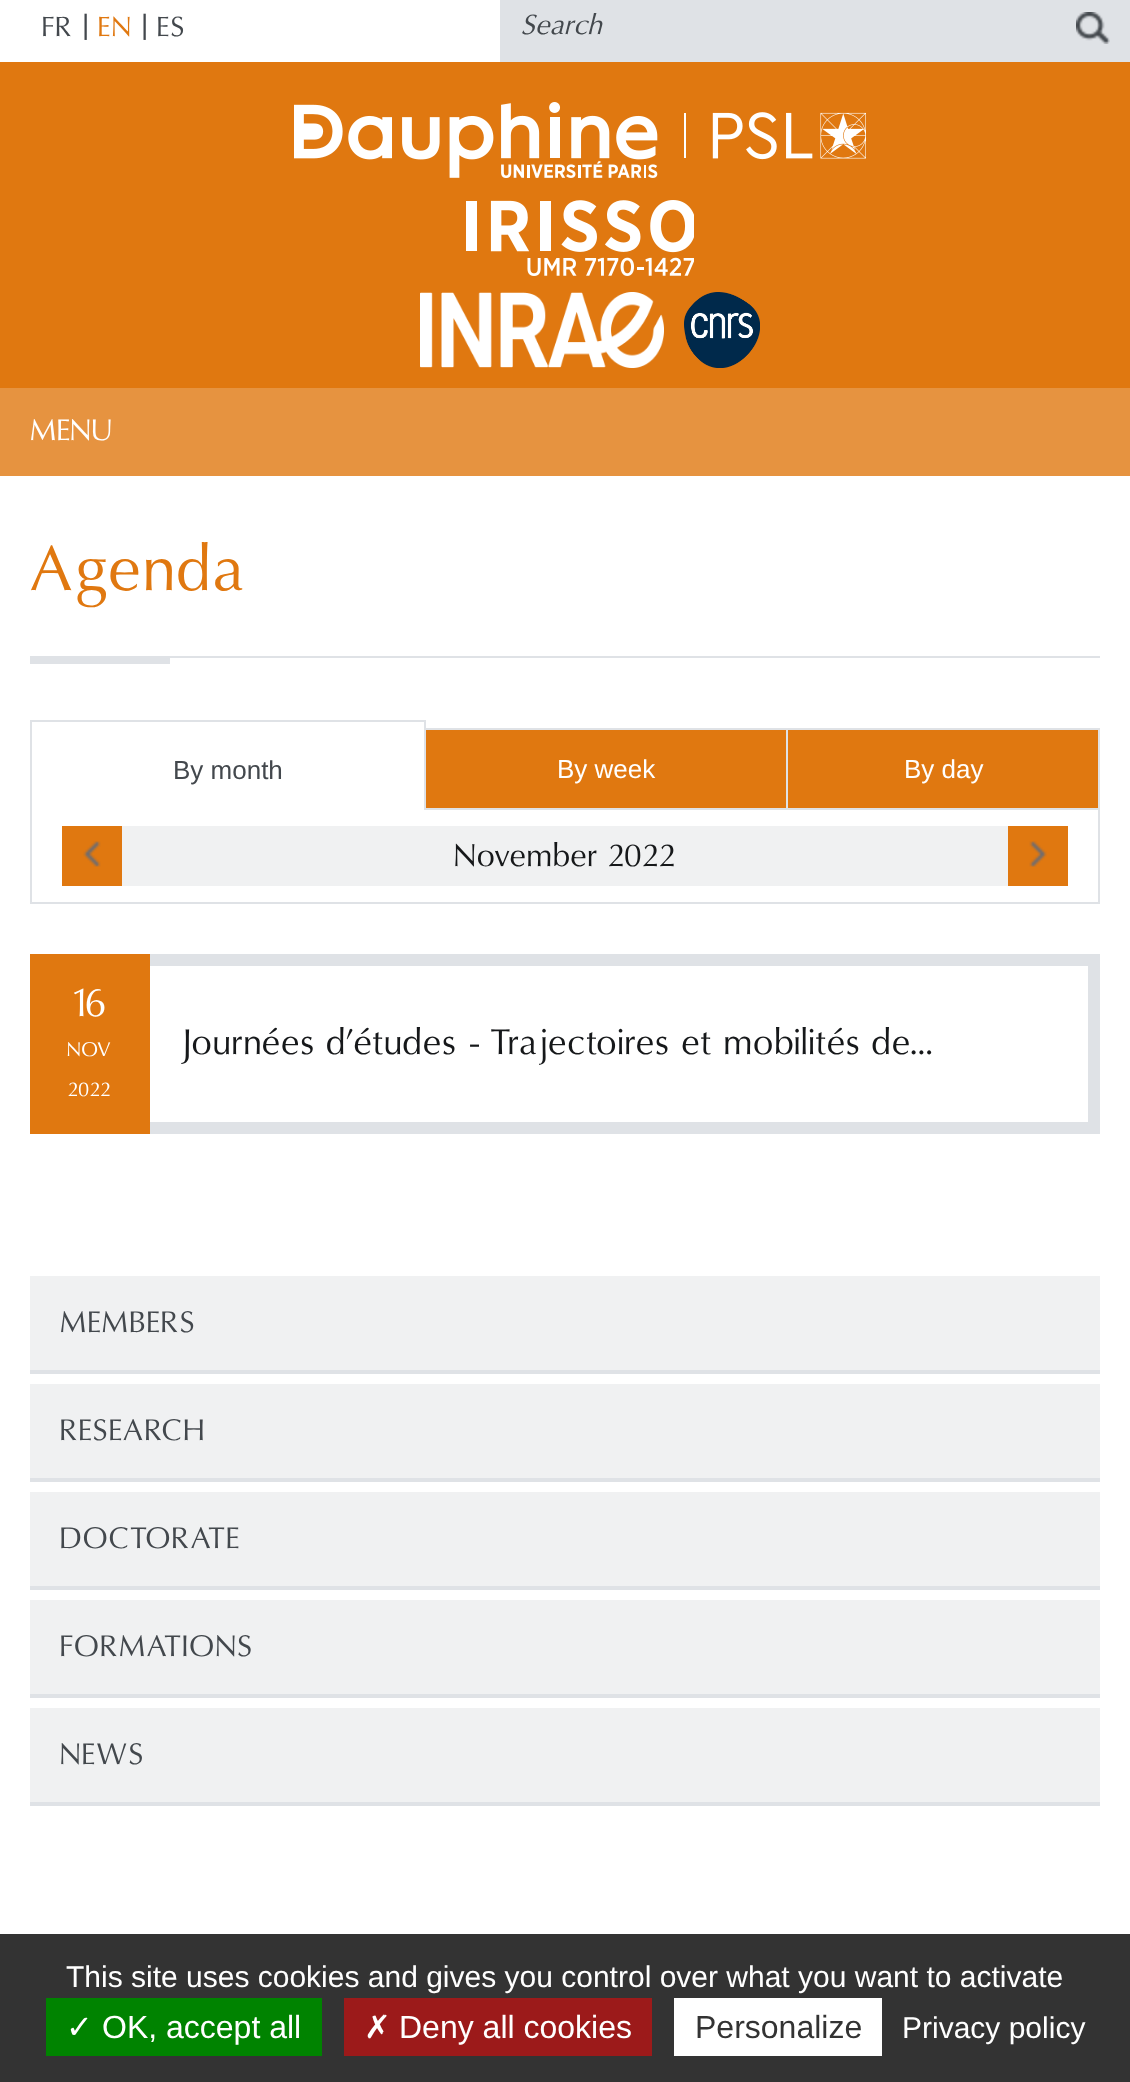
<svg xmlns="http://www.w3.org/2000/svg" width="1130" height="2082" viewBox="0 0 1130 2082">
  <rect width="100%" height="100%" fill="rgb(255,255,255)"/>
  <text x="42" y="36" font-family="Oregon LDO" font-size="28" letter-spacing="2" fill="rgb(67,72,77)">FR</text>
  <text x="82" y="34" font-family="Liberation Sans" font-size="28" fill="rgb(67,72,77)">|</text>
  <text x="98" y="36" font-family="Oregon LDO" font-size="28" letter-spacing="2" fill="rgb(224,120,16)">EN</text>
  <text x="141" y="34" font-family="Liberation Sans" font-size="28" fill="rgb(67,72,77)">|</text>
  <text x="157" y="36" font-family="Oregon LDO" font-size="28" letter-spacing="2" fill="rgb(67,72,77)">ES</text>
  <rect x="500" y="0" width="630" height="62" fill="rgb(223,226,230)"/>
  <text x="521" y="34" font-family="Oregon LDO" font-size="28" font-style="italic" letter-spacing="1" fill="rgb(67,72,77)">Search</text>
  <image x="1076" y="12" width="34" height="32" href="pic1.png"/>
  <rect x="0" y="62" width="1130" height="326" fill="rgb(224,120,16)"/>
  <image x="294" y="102" width="572" height="76" href="pic2.png"/>
  <image x="466" y="200" width="228" height="76" href="pic3.png"/>
  <image x="420" y="292" width="244" height="76" href="pic4.png"/>
  <image x="684" y="292" width="76" height="76" href="pic5.png"/>
  <rect x="0" y="388" width="1130" height="88" fill="rgb(230,147,64)"/>
  <text x="30" y="440" font-family="Oregon LDO" font-size="30" letter-spacing="1" fill="rgb(255,255,255)">MENU</text>
  <rect x="170" y="656" width="930" height="2" fill="rgb(223,226,230)"/>
  <text x="30" y="590" font-family="Oregon LDO" font-size="64" letter-spacing="3.25" fill="rgb(224,120,16)">Agenda</text>
  <rect x="30" y="656" width="140" height="8" fill="rgb(223,226,230)"/>
  <rect x="31" y="729" width="1068" height="174" fill="none" stroke="rgb(223,226,230)" stroke-width="2"/>
  <rect x="424" y="730" width="2" height="80" fill="rgb(223,226,230)"/>
  <rect x="32" y="728" width="392" height="2" fill="rgb(255,255,255)"/>
  <rect x="30" y="720" width="396" height="2" fill="rgb(223,226,230)"/>
  <rect x="424" y="720" width="2" height="10" fill="rgb(223,226,230)"/>
  <rect x="30" y="720" width="2" height="10" fill="rgb(223,226,230)"/>
  <text x="173" y="779" font-family="Liberation Sans" font-size="26" fill="rgb(67,72,77)">By month</text>
  <rect x="426" y="730" width="360" height="78" fill="rgb(224,120,16)"/>
  <rect x="786" y="730" width="2" height="80" fill="rgb(223,226,230)"/>
  <rect x="426" y="808" width="672" height="2" fill="rgb(223,226,230)"/>
  <text x="557" y="778" font-family="Liberation Sans" font-size="26" fill="rgb(255,255,255)">By week</text>
  <rect x="788" y="730" width="310" height="78" fill="rgb(224,120,16)"/>
  <text x="904" y="778" font-family="Liberation Sans" font-size="26" fill="rgb(255,255,255)">By day</text>
  <rect x="62" y="826" width="60" height="60" fill="rgb(224,120,16)"/>
  <image x="83" y="841" width="18" height="26" href="pic6.png"/>
  <rect x="122" y="826" width="886" height="60" fill="rgb(240,241,242)"/>
  <text x="454" y="866" font-family="Oregon LDO" font-size="32" letter-spacing="1.25" fill="rgb(22,24,26)">November 2022</text>
  <rect x="1008" y="826" width="60" height="60" fill="rgb(224,120,16)"/>
  <image x="1029" y="841" width="18" height="26" href="pic7.png"/>
  <rect x="30" y="954" width="120" height="180" fill="rgb(224,120,16)"/>
  <text x="74" y="1016" font-family="Oregon LDO" font-size="40" letter-spacing="1" fill="rgb(255,255,255)">16</text>
  <g font-family="Oregon LDO" font-size="20" letter-spacing="1" fill="rgb(255,255,255)">
    <text x="67" y="1056">NOV</text>
    <text x="68" y="1096">2022</text>
  </g>
  <rect x="150" y="954" width="938" height="12" fill="rgb(223,226,230)"/>
  <rect x="1088" y="954" width="12" height="168" fill="rgb(223,226,230)"/>
  <rect x="150" y="1122" width="950" height="12" fill="rgb(223,226,230)"/>
  <text x="180" y="1054" font-family="Oregon LDO" font-size="36" letter-spacing="1.45" fill="rgb(22,24,26)">Journées d’études - Trajectoires et mobilités de...</text>
  <rect x="30" y="1370" width="1070" height="4" fill="rgb(223,226,230)"/>
  <rect x="30" y="1276" width="1070" height="94" fill="rgb(240,241,242)"/>
  <text x="60" y="1332" font-family="Oregon LDO" font-size="30" letter-spacing="1.75" fill="rgb(67,72,77)">MEMBERS</text>
  <rect x="30" y="1478" width="1070" height="4" fill="rgb(223,226,230)"/>
  <rect x="30" y="1384" width="1070" height="94" fill="rgb(240,241,242)"/>
  <text x="60" y="1440" font-family="Oregon LDO" font-size="30" letter-spacing="1.75" fill="rgb(67,72,77)">RESEARCH</text>
  <rect x="30" y="1586" width="1070" height="4" fill="rgb(223,226,230)"/>
  <rect x="30" y="1492" width="1070" height="94" fill="rgb(240,241,242)"/>
  <text x="60" y="1548" font-family="Oregon LDO" font-size="30" letter-spacing="1.75" fill="rgb(67,72,77)">DOCTORATE</text>
  <rect x="30" y="1694" width="1070" height="4" fill="rgb(223,226,230)"/>
  <rect x="30" y="1600" width="1070" height="94" fill="rgb(240,241,242)"/>
  <text x="60" y="1656" font-family="Oregon LDO" font-size="30" letter-spacing="1.75" fill="rgb(67,72,77)">FORMATIONS</text>
  <rect x="30" y="1802" width="1070" height="4" fill="rgb(223,226,230)"/>
  <rect x="30" y="1708" width="1070" height="94" fill="rgb(240,241,242)"/>
  <text x="60" y="1764" font-family="Oregon LDO" font-size="30" letter-spacing="1.75" fill="rgb(67,72,77)">NEWS</text>
  <rect x="0" y="1934" width="1130" height="148" fill="rgb(51,51,51)"/>
  <text x="66" y="1987" font-family="Liberation Sans" font-size="30" fill="rgb(255,255,255)">This site uses cookies and gives you control over what you want to activate</text>
  <rect x="46" y="1998" width="276" height="58" fill="rgb(0,131,0)"/>
  <text x="66" y="2038" font-family="DejaVu Sans" font-size="32" fill="rgb(255,255,255)">✓</text>
  <text x="102" y="2038" font-family="Liberation Sans" font-size="32" fill="rgb(255,255,255)">OK, accept all</text>
  <rect x="344" y="1998" width="308" height="58" fill="rgb(156,26,26)"/>
  <text x="364" y="2038" font-family="DejaVu Sans" font-size="32" fill="rgb(255,255,255)">✗</text>
  <text x="399" y="2038" font-family="Liberation Sans" font-size="32" fill="rgb(255,255,255)">Deny all cookies</text>
  <rect x="674" y="1998" width="208" height="58" fill="rgb(255,255,255)"/>
  <text x="695" y="2038" font-family="Liberation Sans" font-size="32" fill="rgb(51,51,51)">Personalize</text>
  <text x="902" y="2038" font-family="Liberation Sans" font-size="30" fill="rgb(255,255,255)">Privacy policy</text>
</svg>
